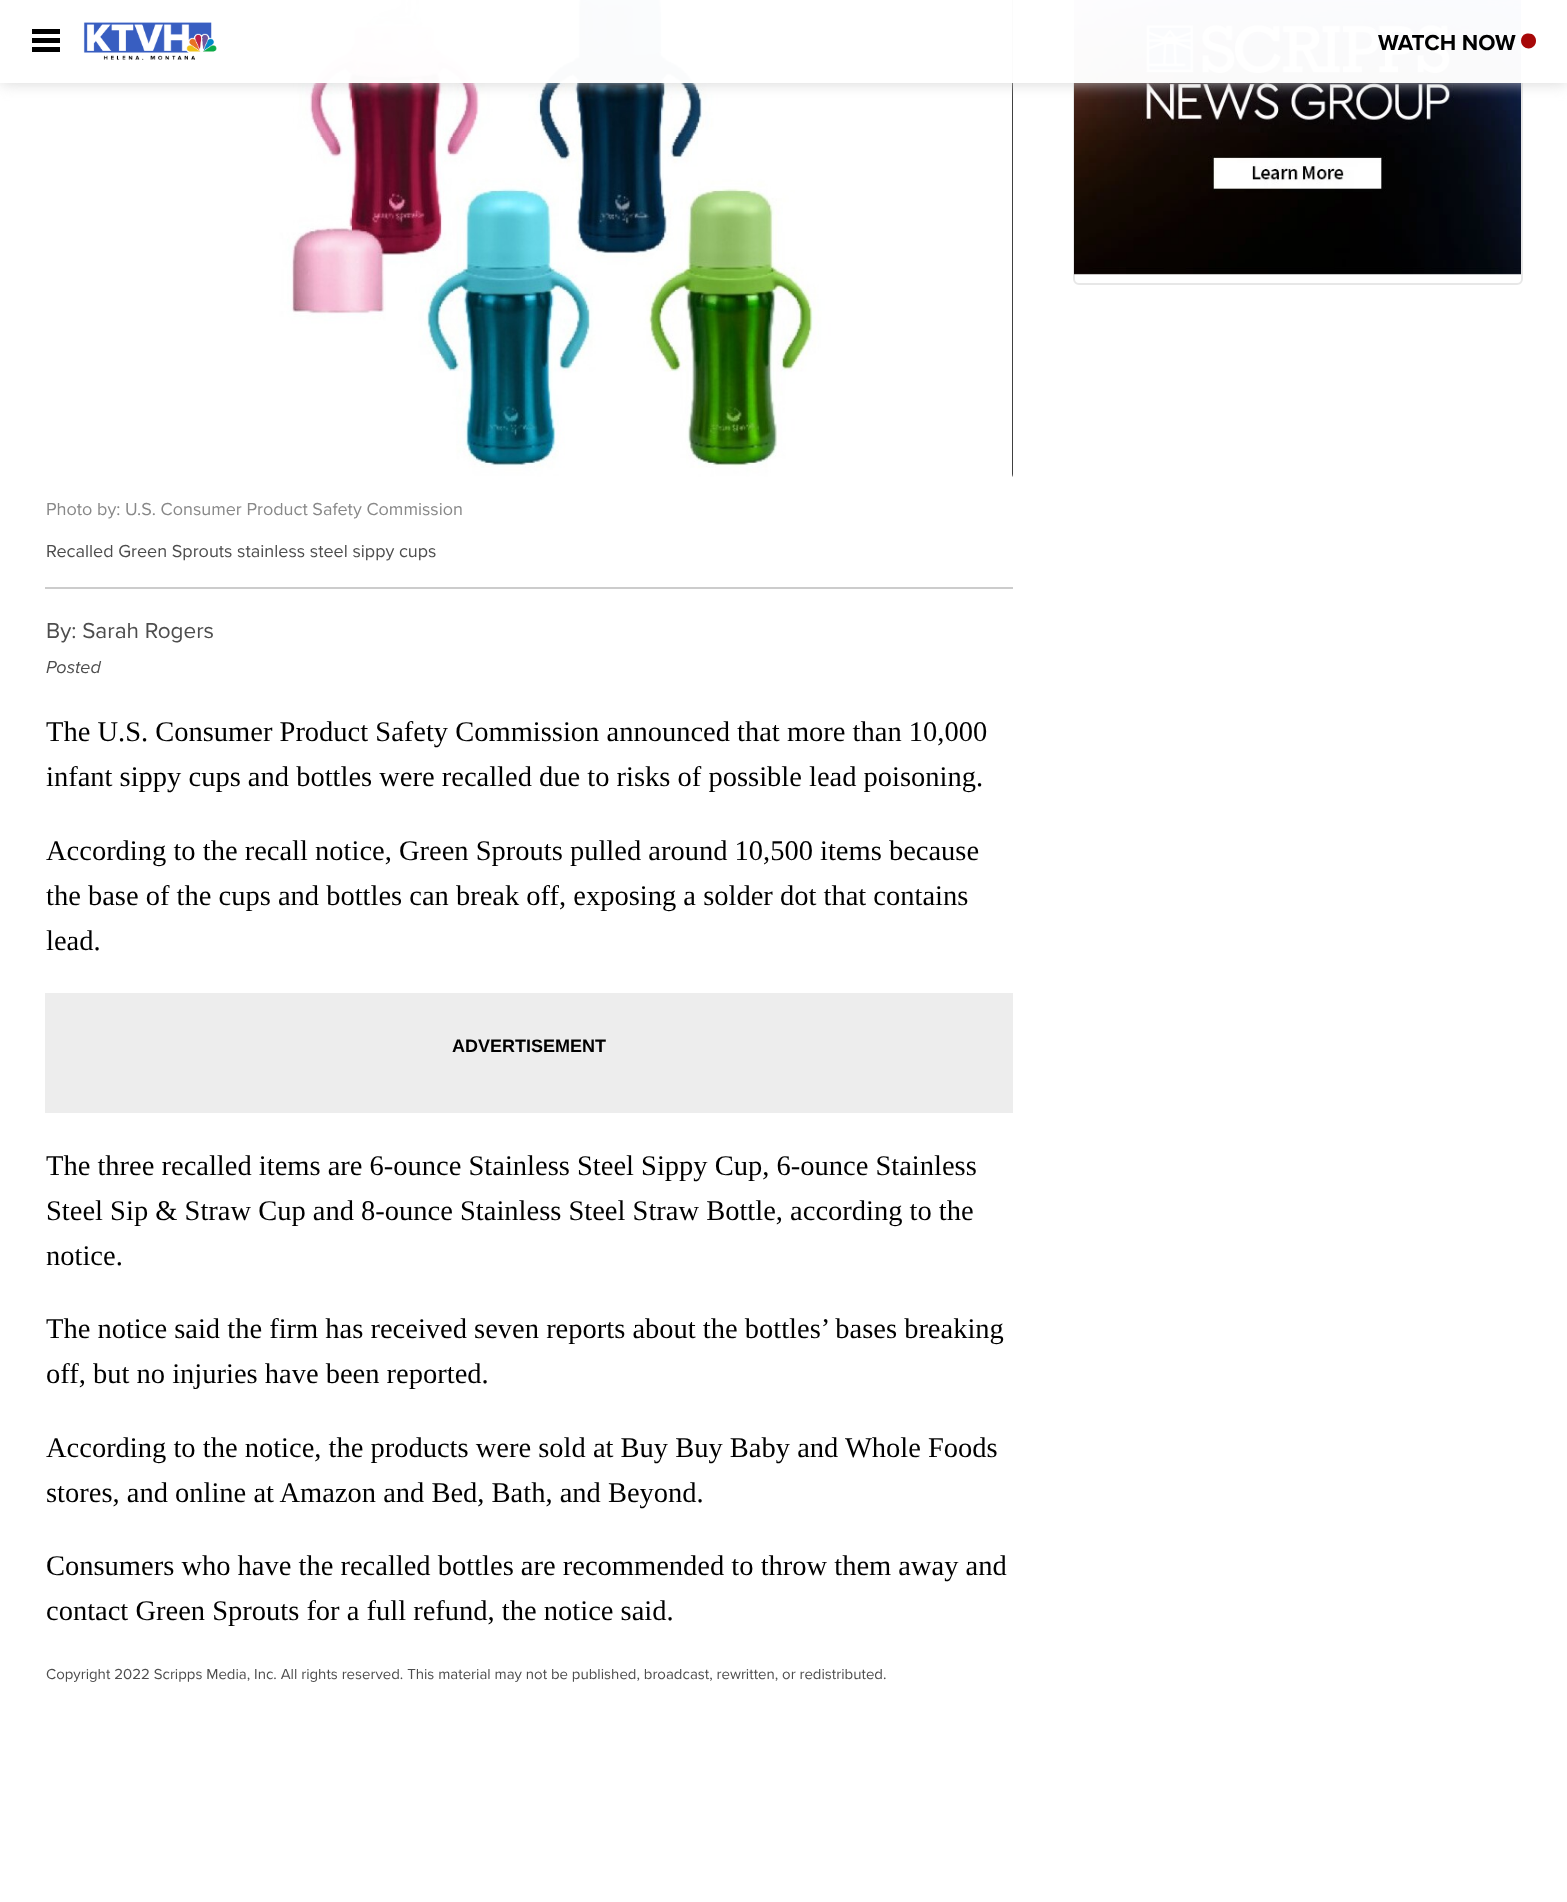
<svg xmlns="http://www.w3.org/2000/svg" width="1567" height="1902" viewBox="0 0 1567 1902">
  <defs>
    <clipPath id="clip1"><path d="M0 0H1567V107H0ZM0 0H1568V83H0Z" clip-rule="evenodd"/></clipPath>
  </defs>
  <rect width="100%" height="100%" fill="rgb(255,255,255)"/>
  <rect x="1074" y="-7" width="448" height="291" rx="5" fill="none" stroke="rgb(231,231,231)" stroke-width="2"/>
  <image x="1074" y="0" width="447" height="275" href="pic2.png"/>
  <rect x="45" y="-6" width="968" height="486" rx="6" fill="rgb(0,0,0)"/>
  <image x="45" y="0" width="968" height="480" href="pic3.png"/>
  <g clip-path="url(#clip1)">
    <rect x="0" y="0" width="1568" height="83" fill="rgba(204,204,204,0.8)" filter="blur(7.5px)"/>
  </g>
  <rect x="0" y="0" width="1567" height="83" fill="rgba(255,255,255,0.98)"/>
  <rect x="32" y="29" width="28" height="5" fill="rgb(0,0,0)"/>
  <rect x="32" y="38" width="28" height="5" fill="rgb(0,0,0)"/>
  <rect x="32" y="47" width="28" height="5" fill="rgb(0,0,0)"/>
  <image x="83" y="22" width="134" height="38" href="pic1.png"/>
  <text x="1378" y="50" font-family="Proxima Nova" font-size="22.5" font-weight="bold" fill="rgb(0,0,0)">WATCH NOW</text>
  <path d="M1528.5 48.5C1538.5 48 1538.5 33.5 1528.5 33.5C1518.5 33.5 1518.5 48 1528.5 48.5Z" fill="rgb(167,8,8)"/>
  <rect x="45" y="587" width="968" height="2" fill="rgb(204,204,204)"/>
  <text x="46" y="515" font-family="Proxima Nova" font-size="18" fill="rgb(136,136,136)">Photo by: U.S. Consumer Product Safety Commission</text>
  <text x="46" y="557" font-family="Proxima Nova" font-size="18" fill="rgb(77,77,77)">Recalled Green Sprouts stainless steel sippy cups</text>
  <text x="46" y="638" font-family="Proxima Nova" font-size="22.5" fill="rgb(77,77,77)">By: Sarah Rogers</text>
  <text x="46" y="673" font-family="Proxima Nova" font-size="18" font-style="italic" fill="rgb(77,77,77)">Posted</text>
  <g font-family="Liberation Serif" font-size="28.5" fill="rgb(0,0,0)">
    <text>
      <tspan x="46" y="741">The U.S. Consumer Product Safety Commission announced that more than 10,000</tspan>
      <tspan x="46" y="786">infant sippy cups and bottles were recalled due to risks of possible lead poisoning.</tspan>
    </text>
    <text>
      <tspan x="46" y="860">According to the recall notice, Green Sprouts pulled around 10,500 items because</tspan>
      <tspan x="46" y="905">the base of the cups and bottles can break off, exposing a solder dot that contains</tspan>
      <tspan x="46" y="950">lead.</tspan>
    </text>
  </g>
  <rect x="45" y="993" width="968" height="120" fill="rgb(237,237,237)"/>
  <text x="452" y="1052" font-family="Liberation Sans" font-size="18" font-weight="bold" fill="rgb(0,0,0)">ADVERTISEMENT</text>
  <g font-family="Liberation Serif" font-size="28.5" fill="rgb(0,0,0)">
    <text>
      <tspan x="46" y="1175">The three recalled items are 6-ounce Stainless Steel Sippy Cup, 6-ounce Stainless</tspan>
      <tspan x="46" y="1220">Steel Sip &amp; Straw Cup and 8-ounce Stainless Steel Straw Bottle, according to the</tspan>
      <tspan x="46" y="1265">notice.</tspan>
    </text>
    <text>
      <tspan x="46" y="1338">The notice said the firm has received seven reports about the bottles’ bases breaking</tspan>
      <tspan x="46" y="1383">off, but no injuries have been reported.</tspan>
    </text>
    <text>
      <tspan x="46" y="1457">According to the notice, the products were sold at Buy Buy Baby and Whole Foods</tspan>
      <tspan x="46" y="1502">stores, and online at Amazon and Bed, Bath, and Beyond.</tspan>
    </text>
    <text>
      <tspan x="46" y="1575">Consumers who have the recalled bottles are recommended to throw them away and</tspan>
      <tspan x="46" y="1620">contact Green Sprouts for a full refund, the notice said.</tspan>
    </text>
  </g>
  <text x="46" y="1679" font-family="Proxima Nova" font-size="15" fill="rgb(77,77,77)">Copyright 2022 Scripps Media, Inc. All rights reserved. This material may not be published, broadcast, rewritten, or redistributed.</text>
</svg>
